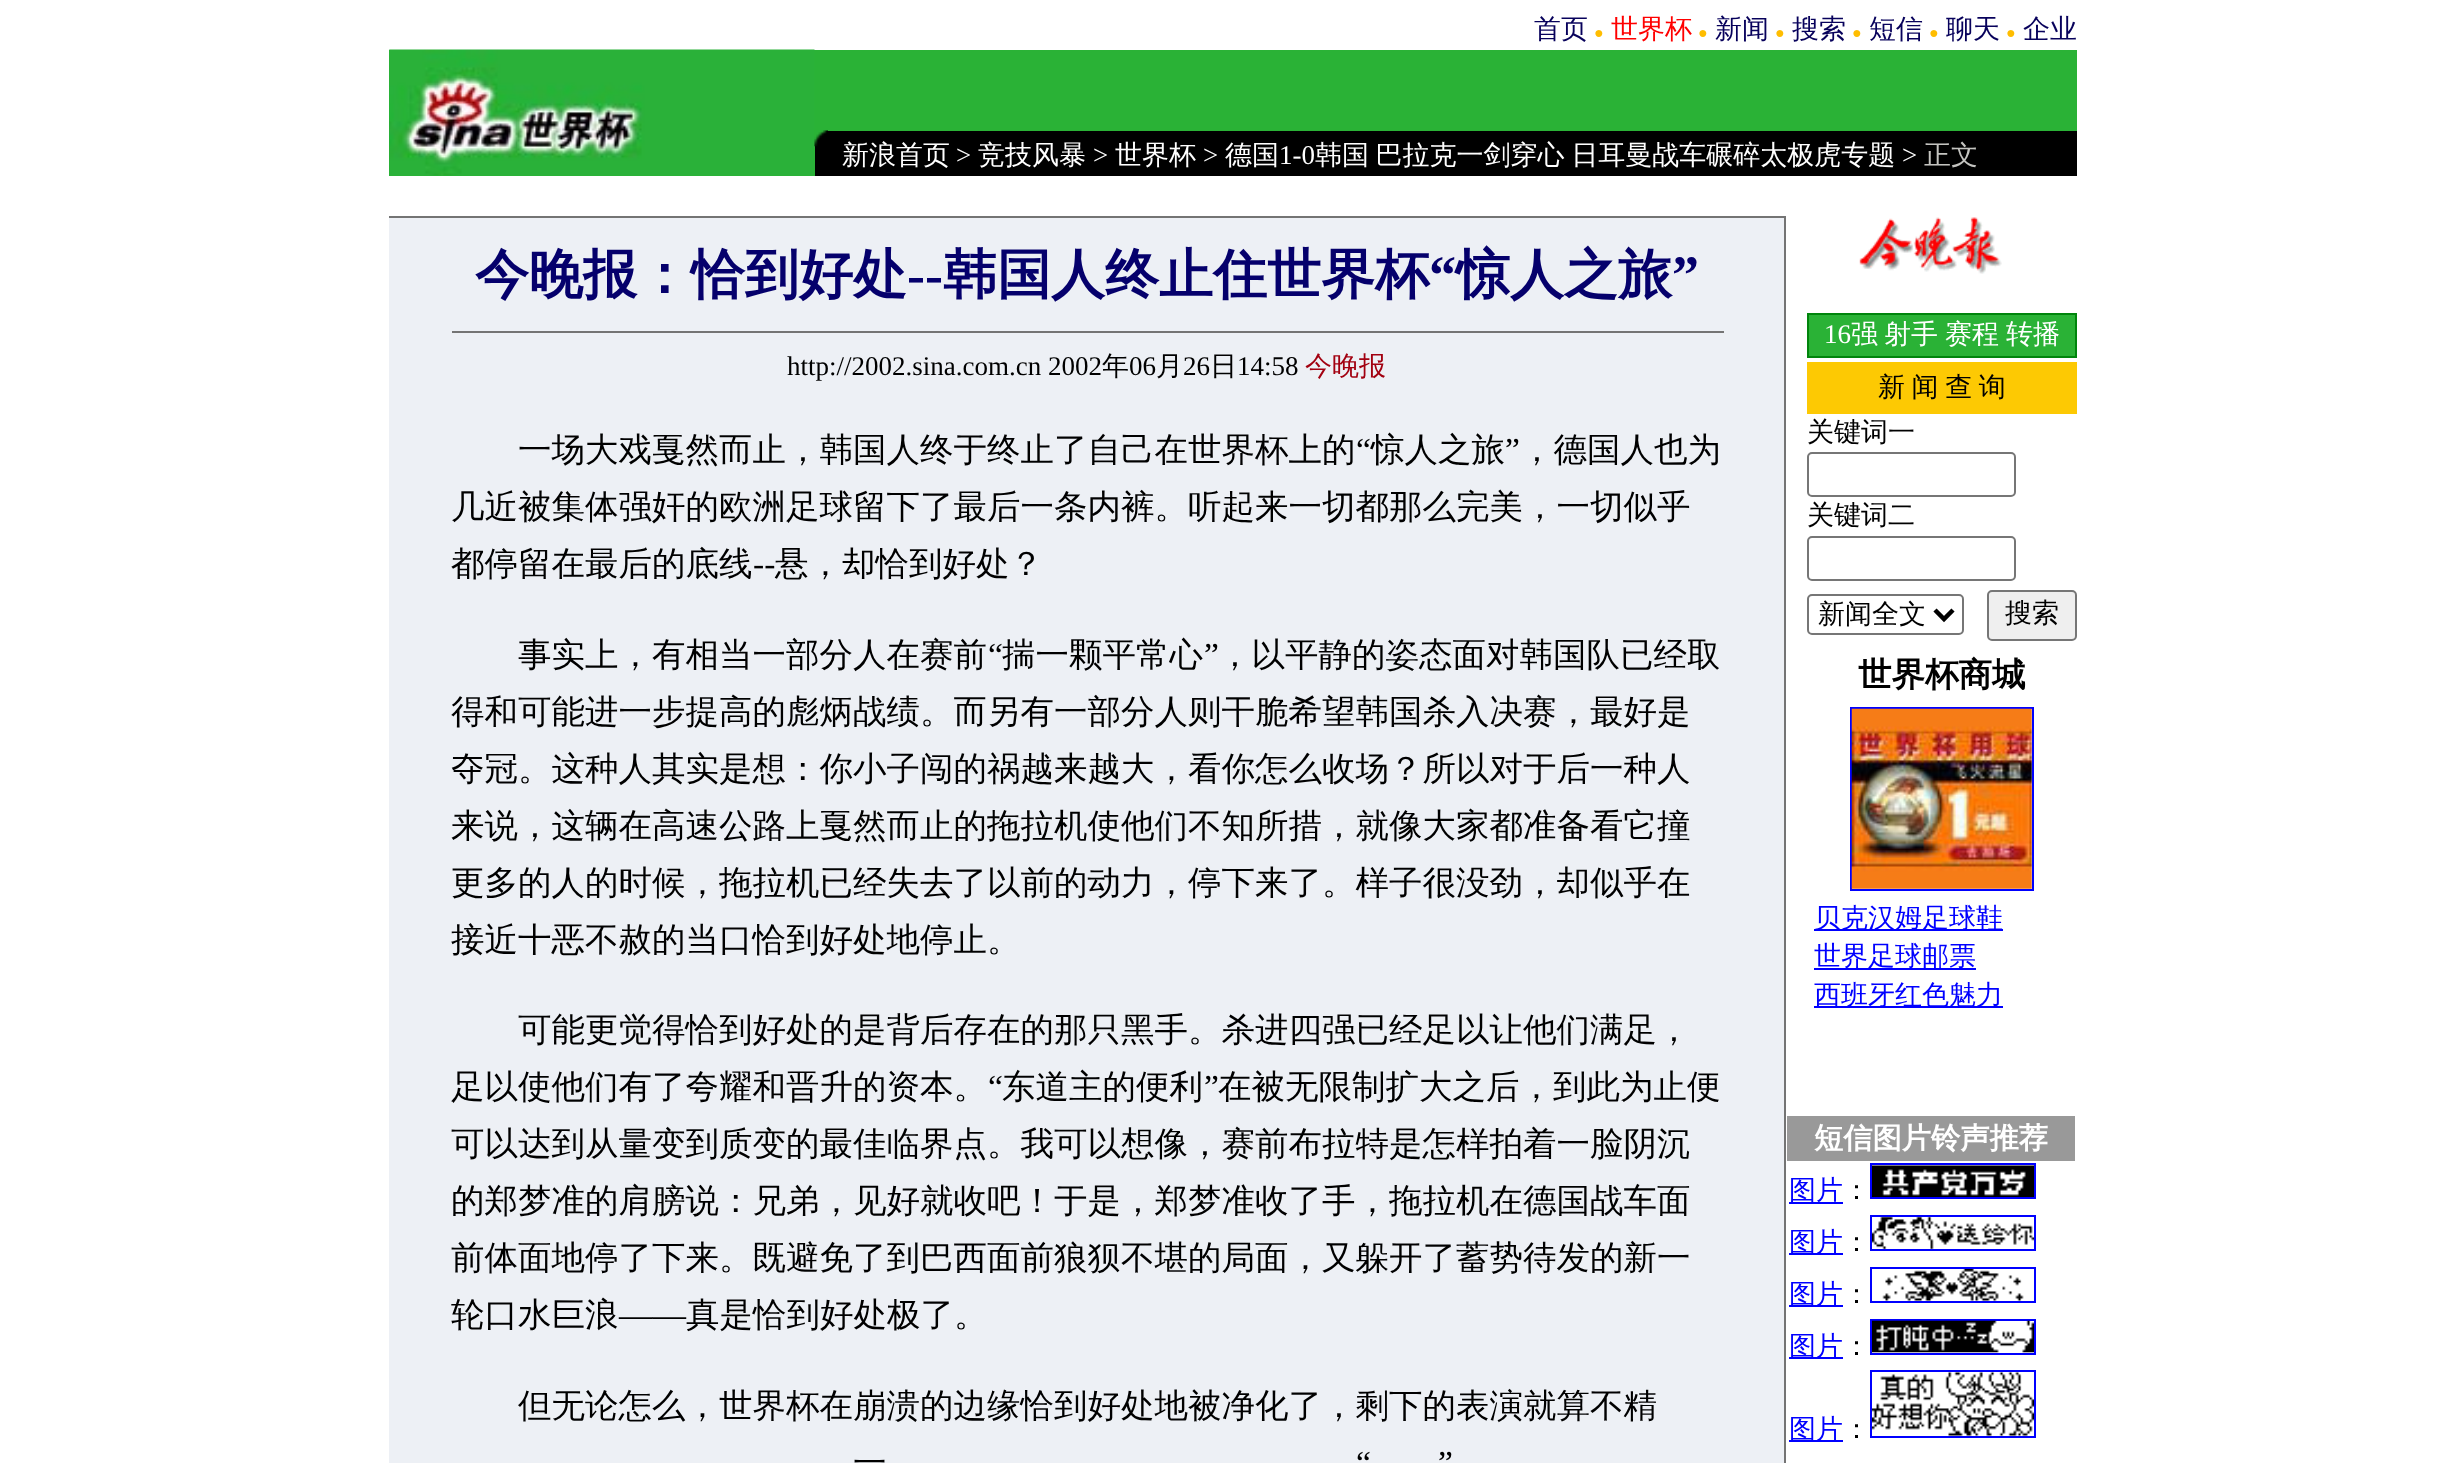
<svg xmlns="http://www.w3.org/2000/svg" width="2464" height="1463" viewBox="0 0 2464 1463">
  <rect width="100%" height="100%" fill="rgb(255,255,255)"/>
  <text x="1534" y="38" font-family="WenQuanYi Zen Hei" font-size="27" font-weight="500" fill="rgb(7,1,91)">首页</text>
  <text x="1594" y="38" font-family="Liberation Serif" font-size="16" fill="rgb(255,189,0)">●</text>
  <text x="1611" y="38" font-family="WenQuanYi Zen Hei" font-size="27" font-weight="500" fill="rgb(255,0,0)">世界杯</text>
  <text x="1698" y="38" font-family="Liberation Serif" font-size="16" fill="rgb(255,189,0)">●</text>
  <text x="1715" y="38" font-family="WenQuanYi Zen Hei" font-size="27" font-weight="500" fill="rgb(7,1,91)">新闻</text>
  <text x="1775" y="38" font-family="Liberation Serif" font-size="16" fill="rgb(255,189,0)">●</text>
  <text x="1792" y="38" font-family="WenQuanYi Zen Hei" font-size="27" font-weight="500" fill="rgb(7,1,91)">搜索</text>
  <text x="1852" y="38" font-family="Liberation Serif" font-size="16" fill="rgb(255,189,0)">●</text>
  <text x="1869" y="38" font-family="WenQuanYi Zen Hei" font-size="27" font-weight="500" fill="rgb(7,1,91)">短信</text>
  <text x="1929" y="38" font-family="Liberation Serif" font-size="16" fill="rgb(255,189,0)">●</text>
  <text x="1946" y="38" font-family="WenQuanYi Zen Hei" font-size="27" font-weight="500" fill="rgb(7,1,91)">聊天</text>
  <text x="2006" y="38" font-family="Liberation Serif" font-size="16" fill="rgb(255,189,0)">●</text>
  <text x="2023" y="38" font-family="WenQuanYi Zen Hei" font-size="27" font-weight="500" fill="rgb(7,1,91)">企业</text>
  <rect x="389" y="50" width="1688" height="126" fill="rgb(42,178,54)"/>
  <image x="389" y="49" width="426" height="127" href="pic1.png"/>
  <rect x="815" y="131" width="1262" height="45" fill="rgb(0,0,0)"/>
  <image x="814" y="130" width="14" height="17" href="pic2.png"/>
  <text x="842" y="164" font-family="WenQuanYi Zen Hei" font-size="27" font-weight="500" fill="rgb(255,255,255)">新浪首页</text>
  <text x="956" y="164" font-family="Liberation Serif" font-size="27" fill="rgb(255,255,255)">&gt;</text>
  <text x="978" y="164" font-family="WenQuanYi Zen Hei" font-size="27" font-weight="500" fill="rgb(255,255,255)">竞技风暴</text>
  <text x="1093" y="164" font-family="Liberation Serif" font-size="27" fill="rgb(255,255,255)">&gt;</text>
  <text x="1115" y="164" font-family="WenQuanYi Zen Hei" font-size="27" font-weight="500" fill="rgb(255,255,255)">世界杯</text>
  <text x="1203" y="164" font-family="Liberation Serif" font-size="27" fill="rgb(255,255,255)">&gt;</text>
  <text x="1225" y="164" font-family="WenQuanYi Zen Hei" font-size="27" font-weight="500" fill="rgb(255,255,255)">德国</text>
  <text x="1279" y="164" font-family="Liberation Serif" font-size="27" fill="rgb(255,255,255)">1-0</text>
  <text x="1315" y="164" word-spacing="-1.5" font-family="WenQuanYi Zen Hei" font-size="27" font-weight="500" fill="rgb(255,255,255)">韩国 巴拉克一剑穿心 日耳曼战车碾碎太极虎专题</text>
  <text x="1902" y="164" font-family="Liberation Serif" font-size="27" fill="rgb(255,255,255)">&gt;</text>
  <text x="1924" y="164" font-family="WenQuanYi Zen Hei" font-size="27" font-weight="500" fill="rgb(196,196,192)">正文</text>
  <rect x="389" y="218" width="1395" height="1245" fill="rgb(237,240,245)"/>
  <rect x="389" y="216" width="1395" height="2" fill="rgb(116,116,116)"/>
  <g font-family="WenQuanYi Zen Hei" font-size="54" font-weight="bold" fill="rgb(5,0,108)">
    <text x="475" y="293">今晚报：恰到好处</text>
    <text x="943" y="293">韩国人终止住世界杯</text>
  </g>
  <text x="1429" y="293" font-family="Liberation Serif" font-size="54" font-weight="bold" fill="rgb(5,0,108)">“</text>
  <text x="1456" y="293" font-family="WenQuanYi Zen Hei" font-size="54" font-weight="bold" fill="rgb(5,0,108)">惊人之旅</text>
  <g font-family="Liberation Serif" font-size="54" font-weight="bold" fill="rgb(5,0,108)">
    <text x="1672" y="293">”</text>
    <text x="907" y="293">--</text>
  </g>
  <rect x="452" y="331" width="1272" height="2" fill="rgb(116,116,116)"/>
  <text x="787" y="375" font-family="Liberation Serif" font-size="27" fill="rgb(0,0,0)">http://2002.sina.com.cn 2002</text>
  <text x="1102" y="375" font-family="WenQuanYi Zen Hei" font-size="27" font-weight="500" fill="rgb(0,0,0)">年</text>
  <text x="1129" y="375" font-family="Liberation Serif" font-size="27" fill="rgb(0,0,0)">06</text>
  <text x="1156" y="375" font-family="WenQuanYi Zen Hei" font-size="27" font-weight="500" fill="rgb(0,0,0)">月</text>
  <text x="1183" y="375" font-family="Liberation Serif" font-size="27" fill="rgb(0,0,0)">26</text>
  <text x="1210" y="375" font-family="WenQuanYi Zen Hei" font-size="27" font-weight="500" fill="rgb(0,0,0)">日</text>
  <text x="1237" y="375" font-family="Liberation Serif" font-size="27" fill="rgb(0,0,0)">14:58</text>
  <text x="1305" y="375" font-family="WenQuanYi Zen Hei" font-size="27" font-weight="500" fill="rgb(162,0,16)">今晚报</text>
  <text x="518" y="461" font-family="WenQuanYi Zen Hei" font-size="33.5" font-weight="500" fill="rgb(0,0,0)">一场大戏戛然而止，韩国人终于终止了自己在世界杯上的</text>
  <text x="1356" y="461" font-family="Liberation Serif" font-size="33.5" fill="rgb(0,0,0)">“</text>
  <text x="1371" y="461" font-family="WenQuanYi Zen Hei" font-size="33.5" font-weight="500" fill="rgb(0,0,0)">惊人之旅</text>
  <text x="1505" y="461" font-family="Liberation Serif" font-size="33.5" fill="rgb(0,0,0)">”</text>
  <g font-family="WenQuanYi Zen Hei" font-size="33.5" font-weight="500" fill="rgb(0,0,0)">
    <text x="1520" y="461">，德国人也为</text>
    <text>
      <tspan x="451" y="518">几近被集体强奸的欧洲足球留下了最后一条内裤。听起来一切都那么完美，一切似乎</tspan>
      <tspan x="451" y="575">都停留在最后的底线</tspan>
    </text>
  </g>
  <text x="753" y="575" font-family="Liberation Serif" font-size="33.5" fill="rgb(0,0,0)">--</text>
  <g font-family="WenQuanYi Zen Hei" font-size="33.5" font-weight="500" fill="rgb(0,0,0)">
    <text x="775" y="575">悬，却恰到好处？</text>
    <text x="518" y="666">事实上，有相当一部分人在赛前</text>
  </g>
  <text x="988" y="666" font-family="Liberation Serif" font-size="33.5" fill="rgb(0,0,0)">“</text>
  <text x="1002" y="666" font-family="WenQuanYi Zen Hei" font-size="33.5" font-weight="500" fill="rgb(0,0,0)">揣一颗平常心</text>
  <text x="1204" y="666" font-family="Liberation Serif" font-size="33.5" fill="rgb(0,0,0)">”</text>
  <g font-family="WenQuanYi Zen Hei" font-size="33.5" font-weight="500" fill="rgb(0,0,0)">
    <text x="1218" y="666">，以平静的姿态面对韩国队已经取</text>
    <text>
      <tspan x="451" y="723">得和可能进一步提高的彪炳战绩。而另有一部分人则干脆希望韩国杀入决赛，最好是</tspan>
      <tspan x="451" y="780">夺冠。这种人其实是想：你小子闯的祸越来越大，看你怎么收场？所以对于后一种人</tspan>
      <tspan x="451" y="837">来说，这辆在高速公路上戛然而止的拖拉机使他们不知所措，就像大家都准备看它撞</tspan>
      <tspan x="451" y="894">更多的人的时候，拖拉机已经失去了以前的动力，停下来了。样子很没劲，却似乎在</tspan>
      <tspan x="451" y="951">接近十恶不赦的当口恰到好处地停止。</tspan>
    </text>
    <text x="518" y="1041">可能更觉得恰到好处的是背后存在的那只黑手。杀进四强已经足以让他们满足，</text>
    <text x="451" y="1098">足以使他们有了夸耀和晋升的资本。</text>
  </g>
  <text x="988" y="1098" font-family="Liberation Serif" font-size="33.5" fill="rgb(0,0,0)">“</text>
  <text x="1002" y="1098" font-family="WenQuanYi Zen Hei" font-size="33.5" font-weight="500" fill="rgb(0,0,0)">东道主的便利</text>
  <text x="1204" y="1098" font-family="Liberation Serif" font-size="33.5" fill="rgb(0,0,0)">”</text>
  <g font-family="WenQuanYi Zen Hei" font-size="33.5" font-weight="500" fill="rgb(0,0,0)">
    <text x="1218" y="1098">在被无限制扩大之后，到此为止便</text>
    <text>
      <tspan x="451" y="1155">可以达到从量变到质变的最佳临界点。我可以想像，赛前布拉特是怎样拍着一脸阴沉</tspan>
      <tspan x="451" y="1212">的郑梦准的肩膀说：兄弟，见好就收吧！于是，郑梦准收了手，拖拉机在德国战车面</tspan>
      <tspan x="451" y="1269">前体面地停了下来。既避免了到巴西面前狼狈不堪的局面，又躲开了蓄势待发的新一</tspan>
      <tspan x="451" y="1326">轮口水巨浪</tspan>
    </text>
  </g>
  <text x="619" y="1326" font-family="Liberation Serif" font-size="33.5" fill="rgb(0,0,0)">——</text>
  <g font-family="WenQuanYi Zen Hei" font-size="33.5" font-weight="500" fill="rgb(0,0,0)">
    <text x="686" y="1326">真是恰到好处极了。</text>
    <text x="518" y="1417">但无论怎么，世界杯在崩溃的边缘恰到好处地被净化了，剩下的表演就算不精</text>
    <text x="853" y="1474">一</text>
  </g>
  <g font-family="Liberation Serif" font-size="33.5" fill="rgb(0,0,0)">
    <text x="1356" y="1474">“</text>
    <text x="1438" y="1474">”</text>
  </g>
  <rect x="1784" y="216" width="2" height="1247" fill="rgb(116,116,116)"/>
  <image x="1859" y="217" width="143" height="57" href="pic3.png"/>
  <rect x="1807" y="313" width="270" height="2" fill="rgb(0,133,12)"/>
  <rect x="1807" y="315" width="2" height="41" fill="rgb(0,133,12)"/>
  <rect x="1809" y="315" width="266" height="41" fill="rgb(42,178,54)"/>
  <text x="1824" y="343" font-family="Liberation Serif" font-size="27" fill="rgb(255,255,255)">16</text>
  <g font-family="WenQuanYi Zen Hei" font-size="27" font-weight="500" fill="rgb(255,255,255)">
    <text x="1851" y="343">强</text>
    <text x="1884" y="343">射手</text>
    <text x="1945" y="343">赛程</text>
    <text x="2006" y="343">转播</text>
  </g>
  <rect x="2075" y="315" width="2" height="41" fill="rgb(0,133,12)"/>
  <rect x="1807" y="356" width="270" height="2" fill="rgb(0,133,12)"/>
  <rect x="1807" y="362" width="270" height="52" fill="rgb(253,201,3)"/>
  <g font-family="WenQuanYi Zen Hei" font-size="27" font-weight="500" fill="rgb(0,0,0)">
    <text x="1878" y="396" word-spacing="-1.5">新 闻 查 询</text>
    <text x="1807" y="441">关键词一</text>
  </g>
  <rect x="1808" y="453" width="207" height="43" rx="4" fill="none" stroke="rgb(118,118,118)" stroke-width="2"/>
  <text x="1807" y="524" font-family="WenQuanYi Zen Hei" font-size="27" font-weight="500" fill="rgb(0,0,0)">关键词二</text>
  <rect x="1808" y="537" width="207" height="43" rx="4" fill="none" stroke="rgb(118,118,118)" stroke-width="2"/>
  <rect x="1808" y="595" width="155" height="39" rx="4" fill="none" stroke="rgb(118,118,118)" stroke-width="2"/>
  <path d="M1935 610L1944 619L1953 610" fill="none" stroke="rgb(0,0,0)" stroke-width="4.5"/>
  <text x="1818" y="623" font-family="WenQuanYi Zen Hei" font-size="27" font-weight="500" fill="rgb(0,0,0)">新闻全文</text>
  <rect x="1988" y="591" width="88" height="49" rx="4" fill="rgb(239,239,239)" stroke="rgb(118,118,118)" stroke-width="2"/>
  <text x="2005" y="622" font-family="WenQuanYi Zen Hei" font-size="27" font-weight="500" fill="rgb(0,0,0)">搜索</text>
  <text x="1858" y="686" font-family="WenQuanYi Zen Hei" font-size="33.5" font-weight="bold" fill="rgb(0,0,0)">世界杯商城</text>
  <rect x="1851" y="708" width="182" height="182" fill="none" stroke="rgb(0,0,255)" stroke-width="2"/>
  <image x="1851" y="708" width="181" height="181" href="pic4.png"/>
  <rect x="1814" y="929" width="189" height="2" fill="rgb(0,0,255)"/>
  <text x="1814" y="927" font-family="WenQuanYi Zen Hei" font-size="27" font-weight="500" fill="rgb(0,0,255)">贝克汉姆足球鞋</text>
  <rect x="1814" y="968" width="162" height="2" fill="rgb(0,0,255)"/>
  <text x="1814" y="965" font-family="WenQuanYi Zen Hei" font-size="27" font-weight="500" fill="rgb(0,0,255)">世界足球邮票</text>
  <rect x="1814" y="1006" width="189" height="2" fill="rgb(0,0,255)"/>
  <text x="1814" y="1004" font-family="WenQuanYi Zen Hei" font-size="27" font-weight="500" fill="rgb(0,0,255)">西班牙红色魅力</text>
  <rect x="1787" y="1116" width="288" height="45" fill="rgb(153,153,153)"/>
  <text x="1814" y="1148" font-family="WenQuanYi Zen Hei" font-size="29.25" font-weight="bold" fill="rgb(255,255,255)">短信图片铃声推荐</text>
  <rect x="1871" y="1164" width="164" height="34" fill="none" stroke="rgb(0,0,255)" stroke-width="2"/>
  <rect x="1789" y="1202" width="54" height="2" fill="rgb(0,0,255)"/>
  <text x="1789" y="1199" font-family="WenQuanYi Zen Hei" font-size="27" font-weight="500" fill="rgb(0,0,255)">图片</text>
  <text x="1843" y="1199" font-family="WenQuanYi Zen Hei" font-size="27" font-weight="500" fill="rgb(0,0,0)">：</text>
  <image x="1872" y="1165" width="162" height="32" href="pic5.png"/>
  <rect x="1871" y="1216" width="164" height="34" fill="none" stroke="rgb(0,0,255)" stroke-width="2"/>
  <rect x="1789" y="1253" width="54" height="2" fill="rgb(0,0,255)"/>
  <text x="1789" y="1251" font-family="WenQuanYi Zen Hei" font-size="27" font-weight="500" fill="rgb(0,0,255)">图片</text>
  <text x="1843" y="1251" font-family="WenQuanYi Zen Hei" font-size="27" font-weight="500" fill="rgb(0,0,0)">：</text>
  <image x="1872" y="1217" width="162" height="32" href="pic6.png"/>
  <rect x="1871" y="1268" width="164" height="34" fill="none" stroke="rgb(0,0,255)" stroke-width="2"/>
  <rect x="1789" y="1305" width="54" height="2" fill="rgb(0,0,255)"/>
  <text x="1789" y="1303" font-family="WenQuanYi Zen Hei" font-size="27" font-weight="500" fill="rgb(0,0,255)">图片</text>
  <text x="1843" y="1303" font-family="WenQuanYi Zen Hei" font-size="27" font-weight="500" fill="rgb(0,0,0)">：</text>
  <image x="1882" y="1269" width="142" height="32" href="pic7.png"/>
  <rect x="1871" y="1320" width="164" height="34" fill="none" stroke="rgb(0,0,255)" stroke-width="2"/>
  <rect x="1789" y="1357" width="54" height="2" fill="rgb(0,0,255)"/>
  <text x="1789" y="1355" font-family="WenQuanYi Zen Hei" font-size="27" font-weight="500" fill="rgb(0,0,255)">图片</text>
  <text x="1843" y="1355" font-family="WenQuanYi Zen Hei" font-size="27" font-weight="500" fill="rgb(0,0,0)">：</text>
  <image x="1872" y="1320" width="162" height="33" href="pic8.png"/>
  <rect x="1871" y="1371" width="164" height="66" fill="none" stroke="rgb(0,0,255)" stroke-width="2"/>
  <rect x="1789" y="1440" width="54" height="2" fill="rgb(0,0,255)"/>
  <text x="1789" y="1438" font-family="WenQuanYi Zen Hei" font-size="27" font-weight="500" fill="rgb(0,0,255)">图片</text>
  <text x="1843" y="1438" font-family="WenQuanYi Zen Hei" font-size="27" font-weight="500" fill="rgb(0,0,0)">：</text>
  <image x="1872" y="1372" width="162" height="64" href="pic9.png"/>
</svg>
